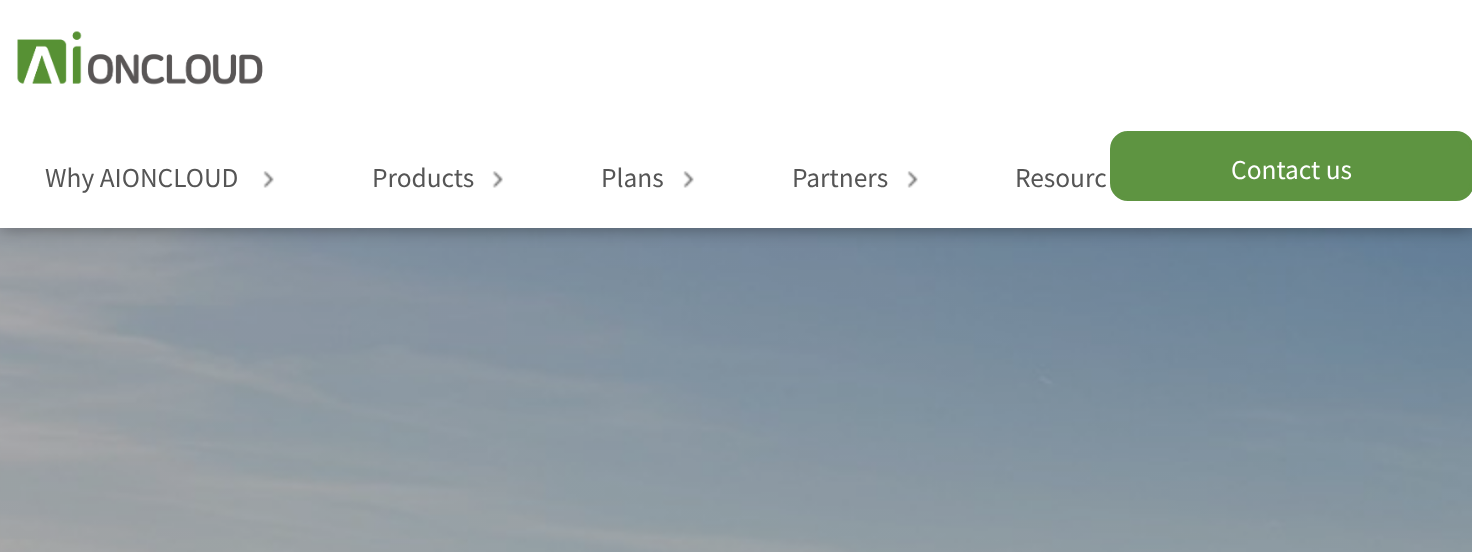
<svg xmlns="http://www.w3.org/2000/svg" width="1472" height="552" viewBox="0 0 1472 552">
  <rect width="100%" height="100%" fill="rgb(255,255,255)"/>
  <image x="0" y="228" width="1472" height="324" href="pic5.png"/>
  <rect x="0" y="0" width="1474" height="228" fill="rgba(0,0,0,0.4)" filter="blur(9px)"/>
  <rect x="0" y="0" width="1472" height="228" fill="rgb(255,255,255)"/>
  <image x="17" y="31" width="246" height="54" href="pic1.png"/>
  <text x="45" y="187" font-family="Noto Sans KR" font-size="24.5" fill="rgb(85,85,85)">Why AIONCLOUD</text>
  <image x="263" y="171" width="11" height="17" href="pic2.png"/>
  <text x="372" y="187" font-family="Noto Sans KR" font-size="24.5" fill="rgb(85,85,85)">Products</text>
  <image x="492" y="171" width="11" height="17" href="pic3.png"/>
  <text x="601" y="187" font-family="Noto Sans KR" font-size="24.5" fill="rgb(85,85,85)">Plans</text>
  <image x="683" y="171" width="11" height="17" href="pic2.png"/>
  <text x="792" y="187" font-family="Noto Sans KR" font-size="24.5" fill="rgb(85,85,85)">Partners</text>
  <image x="907" y="171" width="11" height="17" href="pic4.png"/>
  <text x="1015" y="187" font-family="Noto Sans KR" font-size="24.5" fill="rgb(85,85,85)">Resourc</text>
  <rect x="1112" y="133" width="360" height="66" rx="16" fill="rgb(94,148,65)" stroke="rgb(94,148,65)" stroke-width="4"/>
  <text x="1231" y="179" font-family="Noto Sans KR" font-size="24.5" fill="rgb(255,255,255)">Contact us</text>
</svg>
